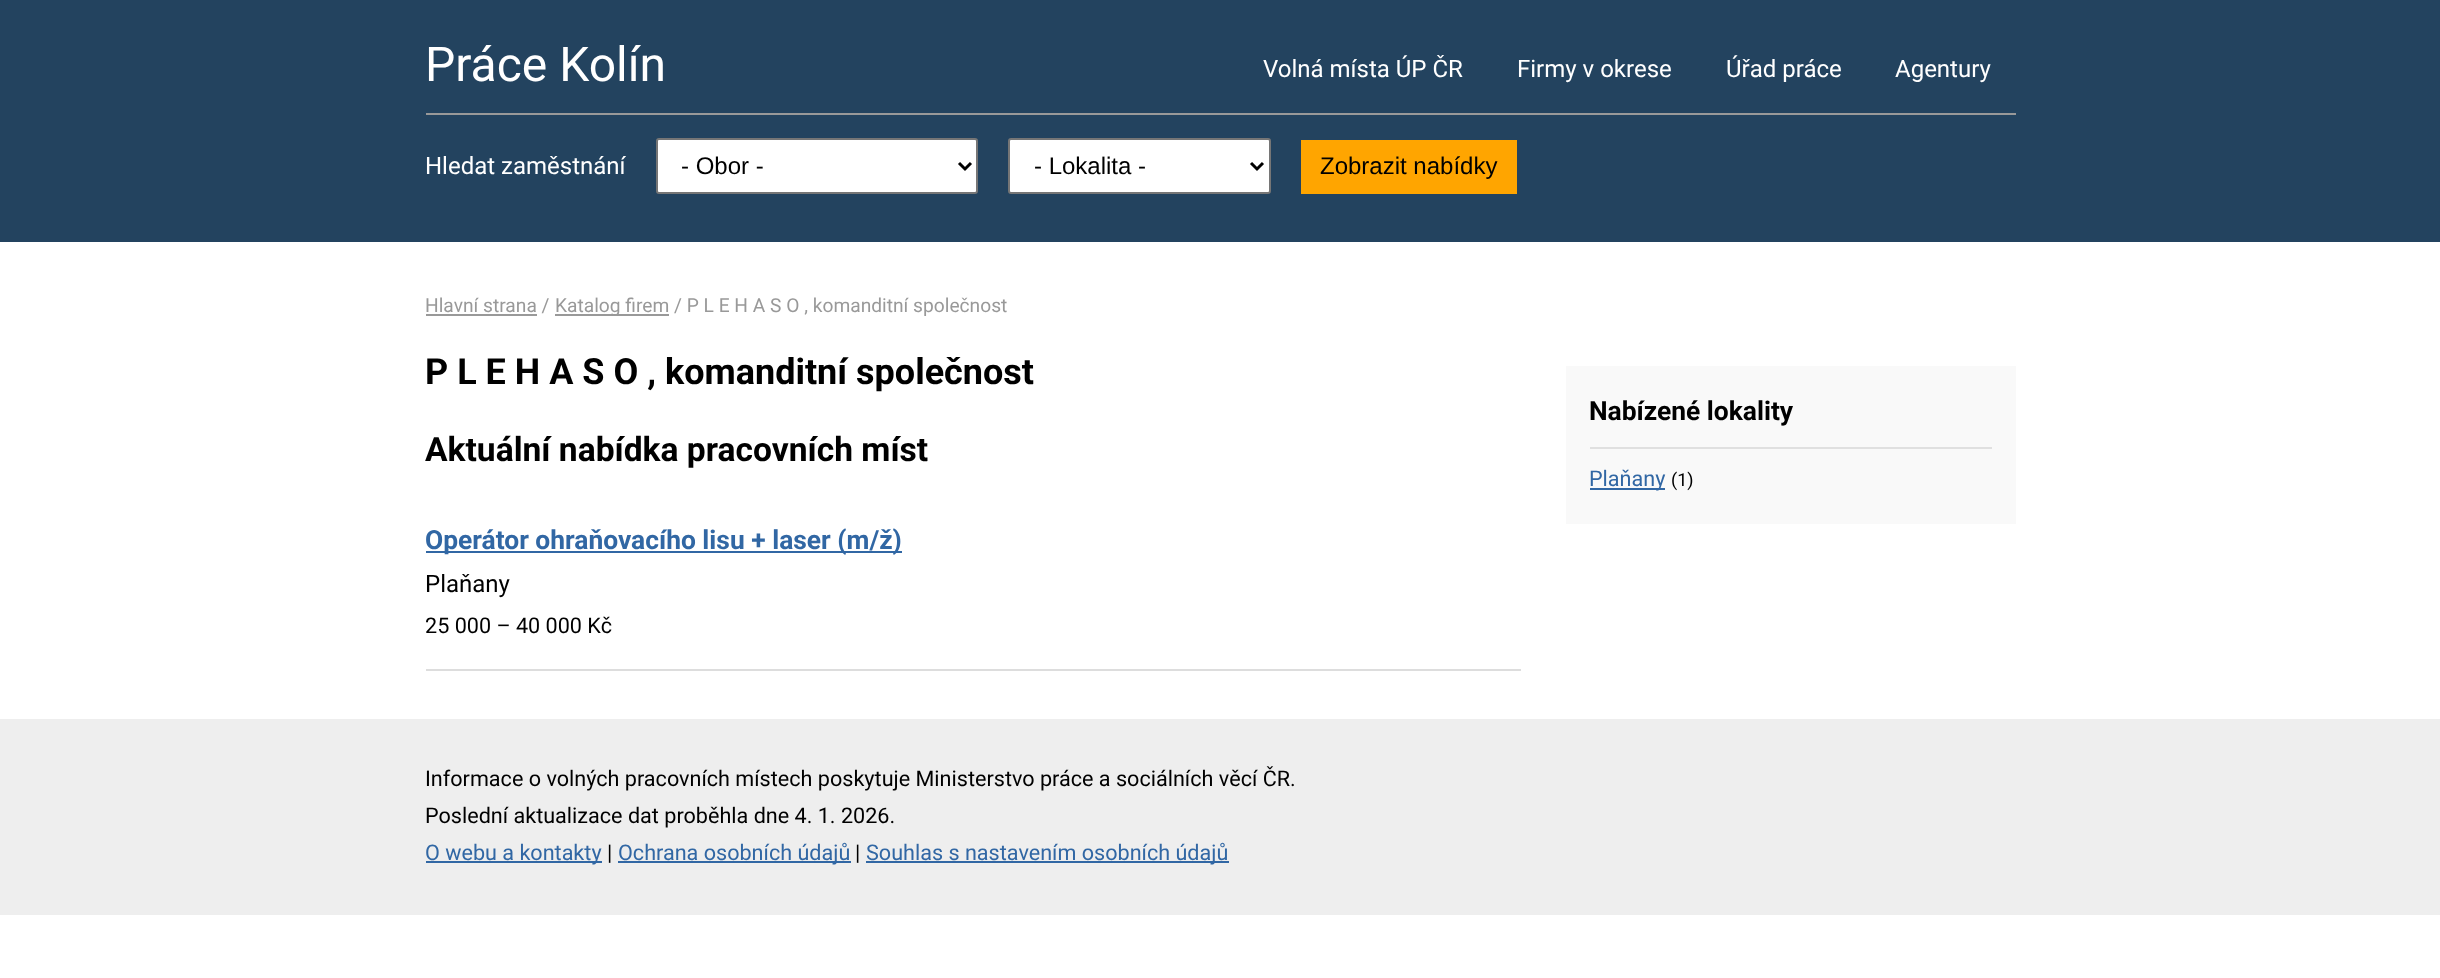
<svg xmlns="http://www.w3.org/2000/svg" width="2440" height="978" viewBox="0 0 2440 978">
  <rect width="100%" height="100%" fill="rgb(255,255,255)"/>
  <rect x="0" y="0" width="2440" height="242" fill="rgb(35,67,95)"/>
  <text x="425" y="81" font-family="Roboto" font-size="48" fill="rgb(255,255,255)">Práce Kolín</text>
  <g font-family="Roboto" font-size="24" fill="rgb(255,255,255)">
    <text x="1263" y="77">Volná místa ÚP ČR</text>
    <text x="1517" y="77">Firmy v okrese</text>
    <text x="1726" y="77">Úřad práce</text>
    <text x="1895" y="77">Agentury</text>
  </g>
  <rect x="426" y="113" width="1590" height="2" fill="rgb(153,153,153)"/>
  <text x="425" y="174" font-family="Roboto" font-size="24" fill="rgb(255,255,255)">Hledat zaměstnání</text>
  <rect x="657" y="139" width="320" height="54" rx="2" fill="rgb(255,255,255)" stroke="rgb(118,118,118)" stroke-width="2"/>
  <path d="M959 163L965 169L971 163" fill="none" stroke="rgb(0,0,0)" stroke-width="3"/>
  <text x="681" y="174" font-family="Liberation Sans" font-size="24" fill="rgb(0,0,0)">- Obor -</text>
  <rect x="1009" y="139" width="261" height="54" rx="2" fill="rgb(255,255,255)" stroke="rgb(118,118,118)" stroke-width="2"/>
  <path d="M1251 163L1257 169L1263 163" fill="none" stroke="rgb(0,0,0)" stroke-width="3"/>
  <text x="1034" y="174" font-family="Liberation Sans" font-size="24" fill="rgb(0,0,0)">- Lokalita -</text>
  <rect x="1301" y="140" width="216" height="54" fill="rgb(255,165,0)"/>
  <text x="1320" y="174" font-family="Liberation Sans" font-size="24" fill="rgb(0,0,0)">Zobrazit nabídky</text>
  <text x="425" y="312" font-family="Roboto" font-size="19.2" fill="rgb(153,153,153)">Hlavní strana /</text>
  <rect x="426" y="314" width="111" height="2" fill="rgb(153,153,153)"/>
  <rect x="555" y="314" width="114" height="2" fill="rgb(153,153,153)"/>
  <text x="555" y="312" font-family="Roboto" font-size="19.2" fill="rgb(153,153,153)">Katalog firem / P L E H A S O , komanditní společnost</text>
  <text x="425" y="384" font-family="Roboto" font-size="36" font-weight="bold" fill="rgb(0,0,0)">P L E H A S O , komanditní společnost</text>
  <text x="425" y="461" font-family="Roboto" font-size="33.6" font-weight="bold" fill="rgb(0,0,0)">Aktuální nabídka pracovních míst</text>
  <rect x="426" y="669" width="1095" height="2" fill="rgb(221,221,221)"/>
  <rect x="426" y="551" width="476" height="2" fill="rgb(49,103,164)"/>
  <text x="425" y="549" font-family="Roboto" font-size="26.4" font-weight="bold" fill="rgb(49,103,164)">Operátor ohraňovacího lisu + laser (m/ž)</text>
  <text x="425" y="592" font-family="Roboto" font-size="24" fill="rgb(0,0,0)">Plaňany</text>
  <text x="425" y="633" font-family="Roboto" font-size="21.6" fill="rgb(0,0,0)">25 000 – 40 000 Kč</text>
  <rect x="1566" y="366" width="450" height="158" fill="rgb(249,249,249)"/>
  <rect x="1590" y="447" width="402" height="2" fill="rgb(224,224,224)"/>
  <text x="1589" y="420" font-family="Roboto" font-size="26.4" font-weight="bold" fill="rgb(0,0,0)">Nabízené lokality</text>
  <rect x="1590" y="488" width="75" height="2" fill="rgb(49,103,164)"/>
  <text x="1589" y="486" font-family="Roboto" font-size="21.6" fill="rgb(49,103,164)">Plaňany</text>
  <text x="1671" y="486" font-family="Roboto" font-size="18" fill="rgb(0,0,0)">(1)</text>
  <rect x="0" y="719" width="2440" height="196" fill="rgb(238,238,238)"/>
  <g font-family="Roboto" font-size="21.6" fill="rgb(0,0,0)">
    <text>
      <tspan x="425" y="786">Informace o volných pracovních místech poskytuje Ministerstvo práce a sociálních věcí ČR.</tspan>
      <tspan x="425" y="823">Poslední aktualizace dat proběhla dne 4. 1. 2026.</tspan>
    </text>
  </g>
  <rect x="426" y="861" width="176" height="2" fill="rgb(49,103,164)"/>
  <text x="425" y="860" font-family="Roboto" font-size="21.6" fill="rgb(49,103,164)">O webu a kontakty</text>
  <text x="607" y="860" font-family="Roboto" font-size="21.6" fill="rgb(0,0,0)">|</text>
  <rect x="618" y="861" width="233" height="2" fill="rgb(49,103,164)"/>
  <text x="618" y="860" font-family="Roboto" font-size="21.6" fill="rgb(49,103,164)">Ochrana osobních údajů</text>
  <text x="855" y="860" font-family="Roboto" font-size="21.6" fill="rgb(0,0,0)">|</text>
  <rect x="866" y="861" width="363" height="2" fill="rgb(49,103,164)"/>
  <text x="866" y="860" font-family="Roboto" font-size="21.6" fill="rgb(49,103,164)">Souhlas s nastavením osobních údajů</text>
</svg>
